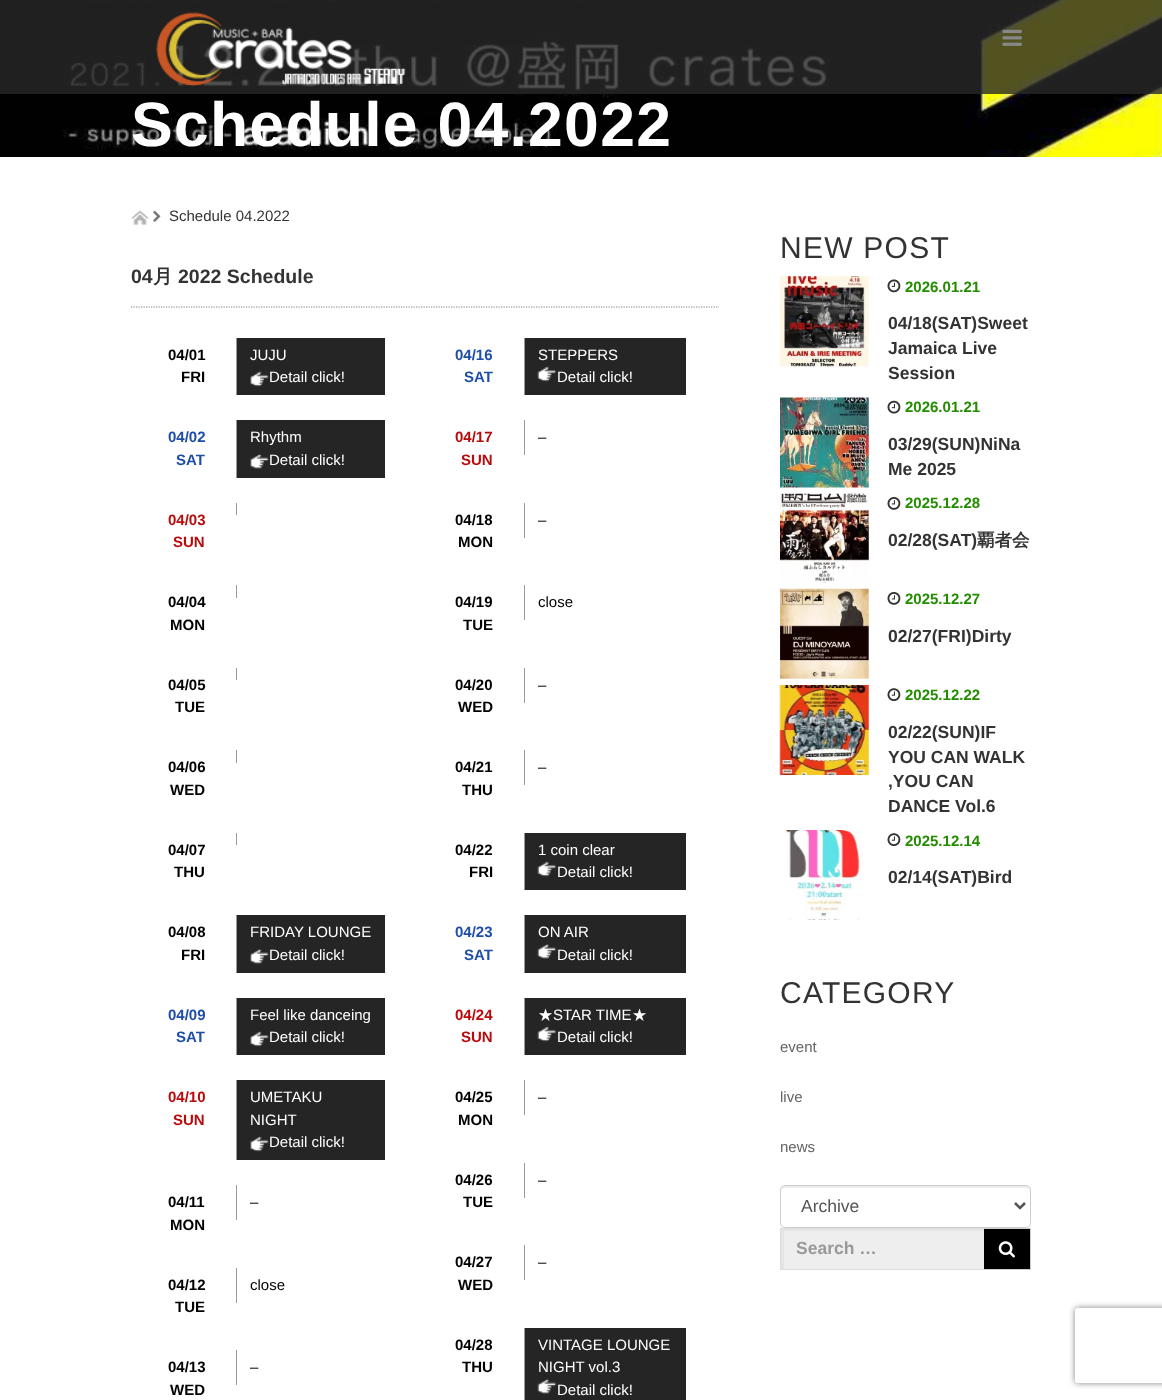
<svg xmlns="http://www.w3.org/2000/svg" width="1162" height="1400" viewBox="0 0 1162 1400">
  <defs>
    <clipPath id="clip1"><rect x="781" y="1229" width="204" height="40"/></clipPath>
    <clipPath id="clip2"><path d="M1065 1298H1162V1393H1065ZM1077.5 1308H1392.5C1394 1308 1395 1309 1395 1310.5V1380.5C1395 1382 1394 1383 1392.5 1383H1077.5C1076 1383 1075 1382 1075 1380.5V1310.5C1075 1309 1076 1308 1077.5 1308Z" clip-rule="evenodd"/></clipPath>
  </defs>
  <rect width="100%" height="100%" fill="rgb(255,255,255)"/>
  <image x="0" y="0" width="1162" height="157" href="pic1.png"/>
  <rect x="0" y="0" width="1162" height="94" fill="rgba(40,40,40,0.8)"/>
  <image x="156" y="12" width="250" height="75" href="pic2.png"/>
  <image x="1002" y="29" width="20" height="17" href="pic3.png"/>
  <text x="131" y="146" font-family="Liberation Sans" font-size="62.5" font-weight="bold" letter-spacing="1.25" fill="rgb(255,255,255)">Schedule 04.2022</text>
  <image x="131" y="210" width="18" height="15" href="pic4.png"/>
  <image x="153" y="210" width="8" height="12" href="pic5.png"/>
  <text x="169" y="221" font-family="Liberation Sans" font-size="15" fill="rgb(51,51,51)">Schedule 04.2022</text>
  <path d="M131 307H719" fill="none" stroke="rgb(128,128,128)" stroke-width="1.2" stroke-dasharray="1.25 1.25"/>
  <text x="131" y="283" font-family="Liberation Sans" font-size="19.5" font-weight="bold" fill="rgb(51,51,51)">04</text>
  <text x="153" y="283" font-family="WenQuanYi Zen Hei" font-size="19.5" font-weight="bold" fill="rgb(51,51,51)">月</text>
  <text x="178" y="283" font-family="Liberation Sans" font-size="19.5" font-weight="bold" fill="rgb(51,51,51)">2022 Schedule</text>
  <g font-family="Liberation Sans" font-size="15" font-weight="bold" fill="rgb(0,0,0)">
    <text x="168" y="360">04/01</text>
    <text x="181" y="382">FRI</text>
  </g>
  <rect x="237" y="338" width="148" height="57" fill="rgb(38,37,38)"/>
  <rect x="236" y="338" width="1" height="57" fill="rgb(153,153,153)"/>
  <text x="250" y="360" font-family="Liberation Sans" font-size="15" fill="rgb(255,255,255)">JUJU</text>
  <image x="250" y="371" width="19" height="16" href="pic6.png"/>
  <text x="269" y="382" font-family="Liberation Sans" font-size="15" fill="rgb(255,255,255)">Detail click!</text>
  <g font-family="Liberation Sans" font-size="15" font-weight="bold" fill="rgb(30,78,168)">
    <text x="168" y="442">04/02</text>
    <text x="176" y="465">SAT</text>
  </g>
  <rect x="237" y="420" width="148" height="58" fill="rgb(38,37,38)"/>
  <rect x="236" y="420" width="1" height="58" fill="rgb(153,153,153)"/>
  <text x="250" y="442" font-family="Liberation Sans" font-size="15" fill="rgb(255,255,255)">Rhythm</text>
  <image x="250" y="453" width="19" height="16" href="pic7.png"/>
  <text x="269" y="465" font-family="Liberation Sans" font-size="15" fill="rgb(255,255,255)">Detail click!</text>
  <rect x="236" y="503" width="1" height="12" fill="rgb(153,153,153)"/>
  <g font-family="Liberation Sans" font-size="15" font-weight="bold" fill="rgb(183,11,12)">
    <text x="168" y="525">04/03</text>
    <text x="173" y="547">SUN</text>
  </g>
  <rect x="236" y="585" width="1" height="13" fill="rgb(153,153,153)"/>
  <g font-family="Liberation Sans" font-size="15" font-weight="bold" fill="rgb(0,0,0)">
    <text x="168" y="607">04/04</text>
    <text x="170" y="630">MON</text>
  </g>
  <rect x="236" y="668" width="1" height="12" fill="rgb(153,153,153)"/>
  <g font-family="Liberation Sans" font-size="15" font-weight="bold" fill="rgb(0,0,0)">
    <text x="168" y="690">04/05</text>
    <text x="175" y="712">TUE</text>
  </g>
  <rect x="236" y="750" width="1" height="13" fill="rgb(153,153,153)"/>
  <g font-family="Liberation Sans" font-size="15" font-weight="bold" fill="rgb(0,0,0)">
    <text x="168" y="772">04/06</text>
    <text x="170" y="795">WED</text>
  </g>
  <rect x="236" y="833" width="1" height="12" fill="rgb(153,153,153)"/>
  <g font-family="Liberation Sans" font-size="15" font-weight="bold" fill="rgb(0,0,0)">
    <text x="168" y="855">04/07</text>
    <text x="174" y="877">THU</text>
    <text x="168" y="937">04/08</text>
    <text x="181" y="960">FRI</text>
  </g>
  <rect x="237" y="915" width="148" height="58" fill="rgb(38,37,38)"/>
  <rect x="236" y="915" width="1" height="58" fill="rgb(153,153,153)"/>
  <text x="250" y="937" font-family="Liberation Sans" font-size="15" fill="rgb(255,255,255)">FRIDAY LOUNGE</text>
  <image x="250" y="948" width="19" height="16" href="pic7.png"/>
  <text x="269" y="960" font-family="Liberation Sans" font-size="15" fill="rgb(255,255,255)">Detail click!</text>
  <g font-family="Liberation Sans" font-size="15" font-weight="bold" fill="rgb(30,78,168)">
    <text x="168" y="1020">04/09</text>
    <text x="176" y="1042">SAT</text>
  </g>
  <rect x="237" y="998" width="148" height="57" fill="rgb(38,37,38)"/>
  <rect x="236" y="998" width="1" height="57" fill="rgb(153,153,153)"/>
  <text x="250" y="1020" font-family="Liberation Sans" font-size="15" fill="rgb(255,255,255)">Feel like danceing</text>
  <image x="250" y="1031" width="19" height="16" href="pic6.png"/>
  <text x="269" y="1042" font-family="Liberation Sans" font-size="15" fill="rgb(255,255,255)">Detail click!</text>
  <g font-family="Liberation Sans" font-size="15" font-weight="bold" fill="rgb(183,11,12)">
    <text x="168" y="1102">04/10</text>
    <text x="173" y="1125">SUN</text>
  </g>
  <rect x="237" y="1080" width="148" height="80" fill="rgb(38,37,38)"/>
  <rect x="236" y="1080" width="1" height="80" fill="rgb(153,153,153)"/>
  <g font-family="Liberation Sans" font-size="15" fill="rgb(255,255,255)">
    <text>
      <tspan x="250" y="1102">UMETAKU</tspan>
      <tspan x="250" y="1125">NIGHT</tspan>
    </text>
  </g>
  <image x="250" y="1136" width="19" height="16" href="pic6.png"/>
  <text x="269" y="1147" font-family="Liberation Sans" font-size="15" fill="rgb(255,255,255)">Detail click!</text>
  <g font-family="Liberation Sans" font-size="15" font-weight="bold" fill="rgb(0,0,0)">
    <text x="168" y="1207">04/11</text>
    <text x="170" y="1230">MON</text>
  </g>
  <rect x="236" y="1185" width="1" height="35" fill="rgb(153,153,153)"/>
  <text x="250" y="1207" font-family="Liberation Sans" font-size="15" fill="rgb(0,0,0)">–</text>
  <g font-family="Liberation Sans" font-size="15" font-weight="bold" fill="rgb(0,0,0)">
    <text x="168" y="1290">04/12</text>
    <text x="175" y="1312">TUE</text>
  </g>
  <rect x="236" y="1268" width="1" height="35" fill="rgb(153,153,153)"/>
  <text x="250" y="1290" font-family="Liberation Sans" font-size="15" fill="rgb(0,0,0)">close</text>
  <g font-family="Liberation Sans" font-size="15" font-weight="bold" fill="rgb(0,0,0)">
    <text x="168" y="1372">04/13</text>
    <text x="170" y="1395">WED</text>
  </g>
  <rect x="236" y="1350" width="1" height="35" fill="rgb(153,153,153)"/>
  <text x="250" y="1372" font-family="Liberation Sans" font-size="15" fill="rgb(0,0,0)">–</text>
  <g font-family="Liberation Sans" font-size="15" font-weight="bold" fill="rgb(30,78,168)">
    <text x="455" y="360">04/16</text>
    <text x="464" y="382">SAT</text>
  </g>
  <rect x="525" y="338" width="161" height="57" fill="rgb(38,37,38)"/>
  <rect x="524" y="338" width="1" height="57" fill="rgb(153,153,153)"/>
  <text x="538" y="360" font-family="Liberation Sans" font-size="15" fill="rgb(255,255,255)">STEPPERS</text>
  <image x="537" y="366" width="20" height="16" href="pic8.png"/>
  <text x="557" y="382" font-family="Liberation Sans" font-size="15" fill="rgb(255,255,255)">Detail click!</text>
  <g font-family="Liberation Sans" font-size="15" font-weight="bold" fill="rgb(183,11,12)">
    <text x="455" y="442">04/17</text>
    <text x="461" y="465">SUN</text>
  </g>
  <rect x="524" y="420" width="1" height="35" fill="rgb(153,153,153)"/>
  <text x="538" y="442" font-family="Liberation Sans" font-size="15" fill="rgb(0,0,0)">–</text>
  <g font-family="Liberation Sans" font-size="15" font-weight="bold" fill="rgb(0,0,0)">
    <text x="455" y="525">04/18</text>
    <text x="458" y="547">MON</text>
  </g>
  <rect x="524" y="503" width="1" height="35" fill="rgb(153,153,153)"/>
  <text x="538" y="525" font-family="Liberation Sans" font-size="15" fill="rgb(0,0,0)">–</text>
  <g font-family="Liberation Sans" font-size="15" font-weight="bold" fill="rgb(0,0,0)">
    <text x="455" y="607">04/19</text>
    <text x="463" y="630">TUE</text>
  </g>
  <rect x="524" y="585" width="1" height="35" fill="rgb(153,153,153)"/>
  <text x="538" y="607" font-family="Liberation Sans" font-size="15" fill="rgb(0,0,0)">close</text>
  <g font-family="Liberation Sans" font-size="15" font-weight="bold" fill="rgb(0,0,0)">
    <text x="455" y="690">04/20</text>
    <text x="458" y="712">WED</text>
  </g>
  <rect x="524" y="668" width="1" height="35" fill="rgb(153,153,153)"/>
  <text x="538" y="690" font-family="Liberation Sans" font-size="15" fill="rgb(0,0,0)">–</text>
  <g font-family="Liberation Sans" font-size="15" font-weight="bold" fill="rgb(0,0,0)">
    <text x="455" y="772">04/21</text>
    <text x="462" y="795">THU</text>
  </g>
  <rect x="524" y="750" width="1" height="35" fill="rgb(153,153,153)"/>
  <text x="538" y="772" font-family="Liberation Sans" font-size="15" fill="rgb(0,0,0)">–</text>
  <g font-family="Liberation Sans" font-size="15" font-weight="bold" fill="rgb(0,0,0)">
    <text x="455" y="855">04/22</text>
    <text x="469" y="877">FRI</text>
  </g>
  <rect x="525" y="833" width="161" height="57" fill="rgb(38,37,38)"/>
  <rect x="524" y="833" width="1" height="57" fill="rgb(153,153,153)"/>
  <text x="538" y="855" font-family="Liberation Sans" font-size="15" fill="rgb(255,255,255)">1 coin clear</text>
  <image x="537" y="861" width="20" height="16" href="pic8.png"/>
  <text x="557" y="877" font-family="Liberation Sans" font-size="15" fill="rgb(255,255,255)">Detail click!</text>
  <g font-family="Liberation Sans" font-size="15" font-weight="bold" fill="rgb(30,78,168)">
    <text x="455" y="937">04/23</text>
    <text x="464" y="960">SAT</text>
  </g>
  <rect x="525" y="915" width="161" height="58" fill="rgb(38,37,38)"/>
  <rect x="524" y="915" width="1" height="58" fill="rgb(153,153,153)"/>
  <text x="538" y="937" font-family="Liberation Sans" font-size="15" fill="rgb(255,255,255)">ON AIR</text>
  <image x="537" y="943" width="20" height="16" href="pic9.png"/>
  <text x="557" y="960" font-family="Liberation Sans" font-size="15" fill="rgb(255,255,255)">Detail click!</text>
  <g font-family="Liberation Sans" font-size="15" font-weight="bold" fill="rgb(183,11,12)">
    <text x="455" y="1020">04/24</text>
    <text x="461" y="1042">SUN</text>
  </g>
  <rect x="525" y="998" width="161" height="57" fill="rgb(38,37,38)"/>
  <rect x="524" y="998" width="1" height="57" fill="rgb(153,153,153)"/>
  <text x="538" y="1020" font-family="WenQuanYi Zen Hei" font-size="15" font-weight="500" fill="rgb(255,255,255)">★</text>
  <text x="553" y="1020" font-family="Liberation Sans" font-size="15" fill="rgb(255,255,255)">STAR TIME</text>
  <text x="632" y="1020" font-family="WenQuanYi Zen Hei" font-size="15" font-weight="500" fill="rgb(255,255,255)">★</text>
  <image x="537" y="1026" width="20" height="16" href="pic8.png"/>
  <text x="557" y="1042" font-family="Liberation Sans" font-size="15" fill="rgb(255,255,255)">Detail click!</text>
  <g font-family="Liberation Sans" font-size="15" font-weight="bold" fill="rgb(0,0,0)">
    <text x="455" y="1102">04/25</text>
    <text x="458" y="1125">MON</text>
  </g>
  <rect x="524" y="1080" width="1" height="35" fill="rgb(153,153,153)"/>
  <text x="538" y="1102" font-family="Liberation Sans" font-size="15" fill="rgb(0,0,0)">–</text>
  <g font-family="Liberation Sans" font-size="15" font-weight="bold" fill="rgb(0,0,0)">
    <text x="455" y="1185">04/26</text>
    <text x="463" y="1207">TUE</text>
  </g>
  <rect x="524" y="1163" width="1" height="35" fill="rgb(153,153,153)"/>
  <text x="538" y="1185" font-family="Liberation Sans" font-size="15" fill="rgb(0,0,0)">–</text>
  <g font-family="Liberation Sans" font-size="15" font-weight="bold" fill="rgb(0,0,0)">
    <text x="455" y="1267">04/27</text>
    <text x="458" y="1290">WED</text>
  </g>
  <rect x="524" y="1245" width="1" height="35" fill="rgb(153,153,153)"/>
  <text x="538" y="1267" font-family="Liberation Sans" font-size="15" fill="rgb(0,0,0)">–</text>
  <g font-family="Liberation Sans" font-size="15" font-weight="bold" fill="rgb(0,0,0)">
    <text x="455" y="1350">04/28</text>
    <text x="462" y="1372">THU</text>
  </g>
  <rect x="525" y="1328" width="161" height="72" fill="rgb(38,37,38)"/>
  <rect x="524" y="1328" width="1" height="72" fill="rgb(153,153,153)"/>
  <g font-family="Liberation Sans" font-size="15" fill="rgb(255,255,255)">
    <text>
      <tspan x="538" y="1350">VINTAGE LOUNGE</tspan>
      <tspan x="538" y="1372">NIGHT vol.3</tspan>
    </text>
  </g>
  <image x="537" y="1378" width="20" height="16" href="pic9.png"/>
  <text x="557" y="1395" font-family="Liberation Sans" font-size="15" fill="rgb(255,255,255)">Detail click!</text>
  <text x="780" y="258" font-family="Liberation Sans" font-size="30" letter-spacing="1.25" fill="rgb(51,51,51)">NEW POST</text>
  <image x="780" y="276" width="89" height="91" href="pic10.png"/>
  <image x="887" y="279" width="14" height="14" href="pic11.png"/>
  <text x="905" y="292" font-family="Liberation Sans" font-size="15" font-weight="bold" fill="rgb(35,140,0)">2026.01.21</text>
  <g font-family="Liberation Sans" font-size="17.5" font-weight="bold" fill="rgb(51,51,51)">
    <text>
      <tspan x="888" y="329">04/18(SAT)Sweet</tspan>
      <tspan x="888" y="354">Jamaica Live</tspan>
      <tspan x="888" y="379">Session</tspan>
    </text>
  </g>
  <image x="780" y="397" width="89" height="91" href="pic12.png"/>
  <image x="887" y="400" width="14" height="14" href="pic13.png"/>
  <text x="905" y="412" font-family="Liberation Sans" font-size="15" font-weight="bold" fill="rgb(35,140,0)">2026.01.21</text>
  <g font-family="Liberation Sans" font-size="17.5" font-weight="bold" fill="rgb(51,51,51)">
    <text>
      <tspan x="888" y="450">03/29(SUN)NiNa</tspan>
      <tspan x="888" y="475">Me 2025</tspan>
    </text>
  </g>
  <image x="780" y="493" width="89" height="90" href="pic14.png"/>
  <image x="887" y="497" width="14" height="13" href="pic15.png"/>
  <text x="905" y="508" font-family="Liberation Sans" font-size="15" font-weight="bold" fill="rgb(35,140,0)">2025.12.28</text>
  <text x="888" y="546" font-family="Liberation Sans" font-size="17.5" font-weight="bold" fill="rgb(51,51,51)">02/28(SAT)</text>
  <text x="977" y="546" font-family="WenQuanYi Zen Hei" font-size="17.5" font-weight="bold" fill="rgb(51,51,51)">覇者会</text>
  <image x="780" y="588" width="89" height="91" href="pic16.png"/>
  <image x="887" y="592" width="14" height="13" href="pic15.png"/>
  <text x="905" y="604" font-family="Liberation Sans" font-size="15" font-weight="bold" fill="rgb(35,140,0)">2025.12.27</text>
  <text x="888" y="642" font-family="Liberation Sans" font-size="17.5" font-weight="bold" fill="rgb(51,51,51)">02/27(FRI)Dirty</text>
  <image x="779" y="685" width="90" height="90" href="pic17.png"/>
  <image x="887" y="688" width="14" height="14" href="pic18.png"/>
  <text x="905" y="700" font-family="Liberation Sans" font-size="15" font-weight="bold" fill="rgb(35,140,0)">2025.12.22</text>
  <g font-family="Liberation Sans" font-size="17.5" font-weight="bold" fill="rgb(51,51,51)">
    <text>
      <tspan x="888" y="738">02/22(SUN)IF</tspan>
      <tspan x="888" y="763">YOU CAN WALK</tspan>
      <tspan x="888" y="787">,YOU CAN</tspan>
      <tspan x="888" y="812">DANCE Vol.6</tspan>
    </text>
  </g>
  <image x="785" y="830" width="78" height="90" href="pic19.png"/>
  <image x="887" y="833" width="14" height="14" href="pic18.png"/>
  <text x="905" y="846" font-family="Liberation Sans" font-size="15" font-weight="bold" fill="rgb(35,140,0)">2025.12.14</text>
  <text x="888" y="883" font-family="Liberation Sans" font-size="17.5" font-weight="bold" fill="rgb(51,51,51)">02/14(SAT)Bird</text>
  <text x="780" y="1003" font-family="Liberation Sans" font-size="30" letter-spacing="1.25" fill="rgb(51,51,51)">CATEGORY</text>
  <g font-family="Liberation Sans" font-size="15" fill="rgb(100,100,100)">
    <text x="780" y="1052">event</text>
    <text x="780" y="1102">live</text>
    <text x="780" y="1152">news</text>
  </g>
  <path d="M785 1188H1026C1028 1188 1030 1189 1030 1191V1190C1030 1188 1028 1186 1026 1186H785C783 1186 781 1188 781 1190V1191C781 1189 783 1188 785 1188Z" fill="rgb(236,236,236)"/>
  <rect x="780.5" y="1185.5" width="250" height="42" rx="4.5" fill="none" stroke="rgb(204,204,204)"/>
  <path d="M1015 1203L1020 1208L1025 1203" fill="none" stroke="rgb(85,85,85)" stroke-width="2.5"/>
  <text x="801" y="1212" font-family="Liberation Sans" font-size="17.5" fill="rgb(85,85,85)">Archive</text>
  <rect x="784" y="1231" width="200" height="38" fill="rgb(238,238,238)"/>
  <g clip-path="url(#clip1)">
    <path d="M658 1105H1109V1392H658ZM784 1231H988V1271H784Z" fill="rgb(229,229,229)" fill-rule="evenodd"/>
  </g>
  <rect x="780" y="1228" width="205" height="1" fill="rgb(221,221,221)"/>
  <rect x="780" y="1269" width="205" height="1" fill="rgb(221,221,221)"/>
  <rect x="780" y="1228" width="1" height="42" fill="rgb(221,221,221)"/>
  <text x="796" y="1254" font-family="Liberation Sans" font-size="17.5" font-weight="bold" fill="rgb(153,153,153)">Search …</text>
  <rect x="984" y="1229" width="46" height="40" fill="rgb(0,0,0)"/>
  <rect x="984" y="1228" width="47" height="1" fill="rgb(204,204,204)"/>
  <rect x="1030" y="1228" width="1" height="42" fill="rgb(204,204,204)"/>
  <rect x="984" y="1269" width="47" height="1" fill="rgb(204,204,204)"/>
  <image x="998" y="1241" width="17" height="17" href="pic20.png"/>
  <g clip-path="url(#clip2)">
    <rect x="1075" y="1308" width="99" height="75" rx="2.5" fill="rgb(128,128,128)" filter="blur(3px)"/>
  </g>
</svg>
